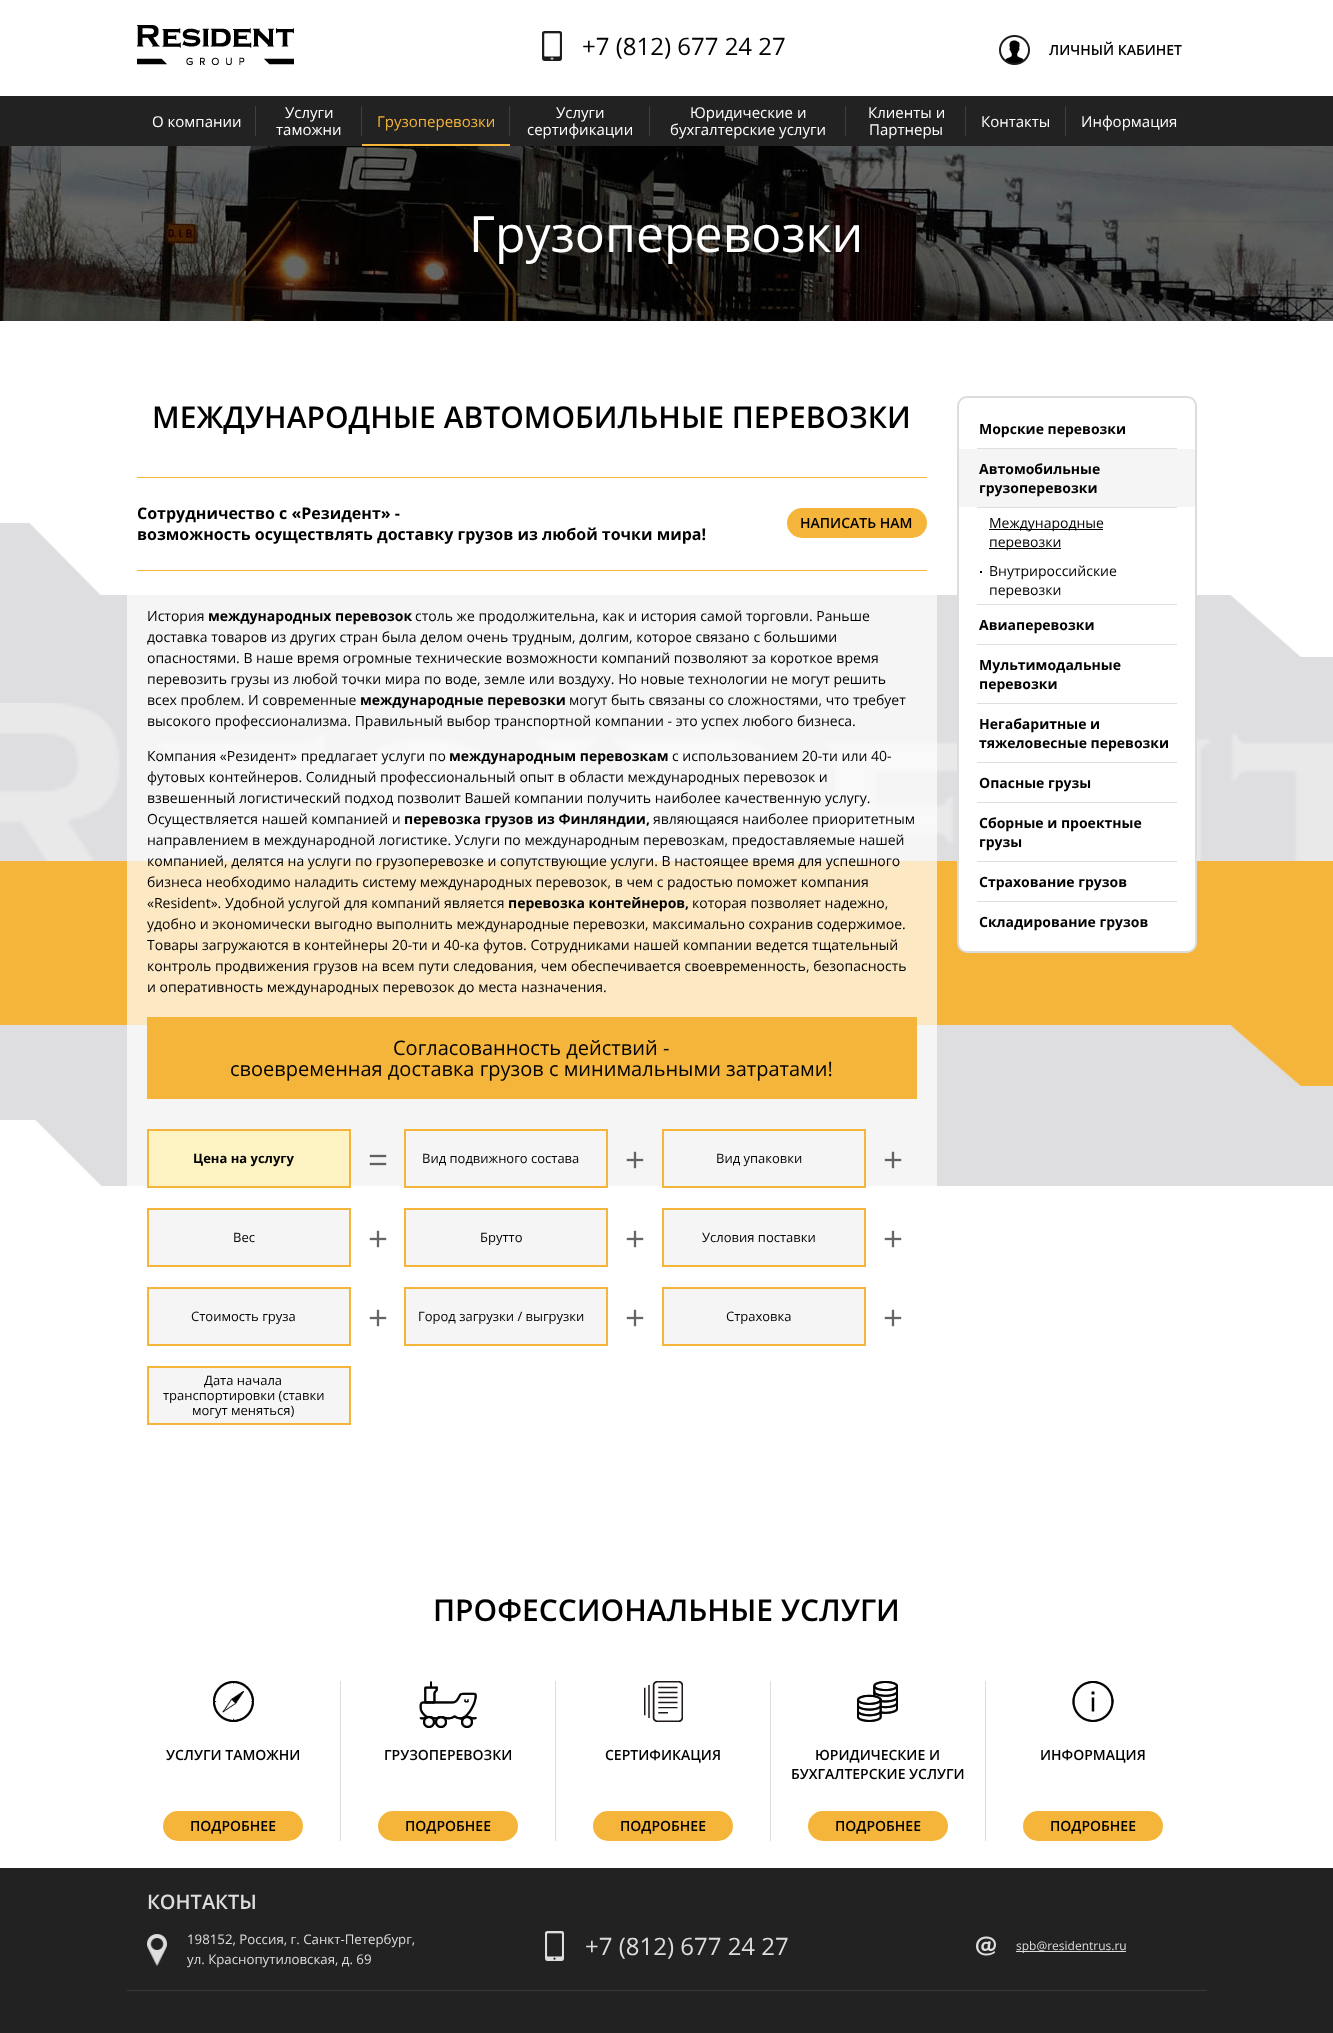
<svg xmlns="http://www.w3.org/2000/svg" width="1333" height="2033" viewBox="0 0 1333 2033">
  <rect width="100%" height="100%" fill="rgb(255,255,255)"/>
  <image x="137" y="25" width="157" height="40" href="pic1.png"/>
  <image x="542" y="31" width="20" height="30" href="pic2.png"/>
  <text x="582" y="55" font-family="Open Sans" font-size="24" fill="rgb(0,0,0)">+7 (812) 677 24 27</text>
  <image x="999" y="35" width="31" height="30" href="pic3.png"/>
  <text x="1049" y="55" font-family="Open Sans" font-size="14" font-weight="600" fill="rgb(0,0,0)">ЛИЧНЫЙ КАБИНЕТ</text>
  <rect x="0" y="96" width="1333" height="50" fill="rgb(34,34,34)"/>
  <rect x="255" y="106" width="1" height="30" fill="rgb(63,63,63)"/>
  <text x="152" y="127" font-family="Open Sans" font-size="15" fill="rgb(255,255,255)">О компании</text>
  <rect x="361" y="106" width="1" height="30" fill="rgb(63,63,63)"/>
  <g font-family="Open Sans" font-size="15" fill="rgb(255,255,255)">
    <text x="285" y="118">Услуги</text>
    <text x="276" y="135">таможни</text>
  </g>
  <rect x="509" y="106" width="1" height="30" fill="rgb(63,63,63)"/>
  <rect x="362" y="144" width="148" height="2" fill="rgb(245,181,58)"/>
  <text x="377" y="127" font-family="Open Sans" font-size="15" fill="rgb(244,180,57)">Грузоперевозки</text>
  <rect x="649" y="106" width="1" height="30" fill="rgb(63,63,63)"/>
  <g font-family="Open Sans" font-size="15" fill="rgb(255,255,255)">
    <text x="556" y="118">Услуги</text>
    <text x="527" y="135">сертификации</text>
  </g>
  <rect x="845" y="106" width="1" height="30" fill="rgb(63,63,63)"/>
  <g font-family="Open Sans" font-size="15" fill="rgb(255,255,255)">
    <text x="690" y="118">Юридические и</text>
    <text x="670" y="135">бухгалтерские услуги</text>
  </g>
  <rect x="965" y="106" width="1" height="30" fill="rgb(63,63,63)"/>
  <g font-family="Open Sans" font-size="15" fill="rgb(255,255,255)">
    <text x="868" y="118">Клиенты и</text>
    <text x="869" y="135">Партнеры</text>
  </g>
  <rect x="1065" y="106" width="1" height="30" fill="rgb(63,63,63)"/>
  <g font-family="Open Sans" font-size="15" fill="rgb(255,255,255)">
    <text x="981" y="127">Контакты</text>
    <text x="1081" y="127">Информация</text>
  </g>
  <image x="0" y="146" width="1333" height="175" href="pic4.png"/>
  <text x="469" y="252" font-family="Open Sans" font-size="50" fill="rgb(255,255,255)">Грузоперевозки</text>
  <image x="0" y="523" width="1333" height="663" href="pic5.png"/>
  <text x="152" y="428" font-family="Open Sans" font-size="30" font-weight="600" fill="rgb(0,0,0)">МЕЖДУНАРОДНЫЕ АВТОМОБИЛЬНЫЕ ПЕРЕВОЗКИ</text>
  <rect x="137" y="477" width="790" height="1" fill="rgb(245,181,58)"/>
  <rect x="137" y="570" width="790" height="1" fill="rgb(245,181,58)"/>
  <g font-family="Open Sans" font-size="16" font-weight="bold" fill="rgb(0,0,0)">
    <text>
      <tspan x="137" y="519">Сотрудничество с «Резидент» -</tspan>
      <tspan x="137" y="540">возможность осуществлять доставку грузов из любой точки мира!</tspan>
    </text>
  </g>
  <rect x="787" y="508" width="140" height="30" rx="15" fill="rgb(245,181,58)"/>
  <text x="800" y="528" font-family="Open Sans" font-size="14" font-weight="600" fill="rgb(0,0,0)">НАПИСАТЬ НАМ</text>
  <rect x="127" y="595" width="810" height="591" fill="rgba(255,255,255,0.7)"/>
  <text x="147" y="621" font-family="Open Sans" font-size="14" fill="rgb(0,0,0)">История</text>
  <text x="208" y="621" font-family="Open Sans" font-size="14" font-weight="bold" fill="rgb(0,0,0)">международных перевозок</text>
  <g font-family="Open Sans" font-size="14" fill="rgb(0,0,0)">
    <text x="415" y="621">столь же продолжительна, как и история самой торговли. Раньше</text>
    <text>
      <tspan x="147" y="642">доставка товаров из других стран была делом очень трудным, долгим, которое связано с большими</tspan>
      <tspan x="147" y="663">опасностями. В наше время огромные технические возможности компаний позволяют за короткое время</tspan>
      <tspan x="147" y="684">перевозить грузы из любой точки мира по воде, земле или воздуху. Но новые технологии не могут решить</tspan>
      <tspan x="147" y="705">всех проблем. И современные</tspan>
    </text>
  </g>
  <text x="360" y="705" font-family="Open Sans" font-size="14" font-weight="bold" fill="rgb(0,0,0)">международные перевозки</text>
  <g font-family="Open Sans" font-size="14" fill="rgb(0,0,0)">
    <text x="569" y="705">могут быть связаны со сложностями, что требует</text>
    <text x="147" y="726">высокого профессионализма. Правильный выбор транспортной компании - это успех любого бизнеса.</text>
    <text x="147" y="761">Компания «Резидент» предлагает услуги по</text>
  </g>
  <text x="449" y="761" font-family="Open Sans" font-size="14" font-weight="bold" fill="rgb(0,0,0)">международным перевозкам</text>
  <g font-family="Open Sans" font-size="14" fill="rgb(0,0,0)">
    <text x="672" y="761">с использованием 20-ти или 40-</text>
    <text>
      <tspan x="147" y="782">футовых контейнеров. Солидный профессиональный опыт в области международных перевозок и</tspan>
      <tspan x="147" y="803">взвешенный логистический подход позволит Вашей компании получить наиболее качественную услугу.</tspan>
      <tspan x="147" y="824">Осуществляется нашей компанией и</tspan>
    </text>
  </g>
  <text x="404" y="824" font-family="Open Sans" font-size="14" font-weight="bold" fill="rgb(0,0,0)">перевозка грузов из Финляндии,</text>
  <g font-family="Open Sans" font-size="14" fill="rgb(0,0,0)">
    <text x="653" y="824">являющаяся наиболее приоритетным</text>
    <text>
      <tspan x="147" y="845">направлением в международной логистике. Услуги по международным перевозкам, предоставляемые нашей</tspan>
      <tspan x="147" y="866">компанией, делятся на услуги по грузоперевозке и сопутствующие услуги. В настоящее время для успешного</tspan>
      <tspan x="147" y="887">бизнеса необходимо наладить систему международных перевозок, в чем с радостью поможет компания</tspan>
      <tspan x="147" y="908">«Resident». Удобной услугой для компаний является</tspan>
    </text>
  </g>
  <text x="508" y="908" font-family="Open Sans" font-size="14" font-weight="bold" fill="rgb(0,0,0)">перевозка контейнеров,</text>
  <g font-family="Open Sans" font-size="14" fill="rgb(0,0,0)">
    <text x="692" y="908">которая позволяет надежно,</text>
    <text>
      <tspan x="147" y="929">удобно и экономически выгодно выполнить международные перевозки, максимально сохранив содержимое.</tspan>
      <tspan x="147" y="950">Товары загружаются в контейнеры 20-ти и 40-ка футов. Сотрудниками нашей компании ведется тщательный</tspan>
      <tspan x="147" y="971">контроль продвижения грузов на всем пути следования, чем обеспечивается своевременность, безопасность</tspan>
      <tspan x="147" y="992">и оперативность международных перевозок до места назначения.</tspan>
    </text>
  </g>
  <rect x="147" y="1017" width="770" height="82" fill="rgb(245,181,58)"/>
  <g font-family="Open Sans" font-size="20" fill="rgb(0,0,0)">
    <text x="393" y="1055">Согласованность действий -</text>
    <text x="230" y="1076">своевременная доставка грузов с минимальными затратами!</text>
  </g>
  <rect x="148" y="1130" width="202" height="57" fill="rgb(253,242,194)" stroke="rgb(245,181,58)" stroke-width="2"/>
  <text x="193" y="1163" font-family="Open Sans" font-size="13" font-weight="bold" fill="rgb(0,0,0)">Цена на услугу</text>
  <image x="369" y="1154" width="18" height="12" href="pic6.png"/>
  <rect x="405" y="1130" width="202" height="57" fill="none" stroke="rgb(245,181,58)" stroke-width="2"/>
  <text x="422" y="1163" font-family="Open Sans" font-size="13" fill="rgb(0,0,0)">Вид подвижного состава</text>
  <image x="626" y="1151" width="18" height="18" href="pic7.png"/>
  <rect x="663" y="1130" width="202" height="57" fill="none" stroke="rgb(245,181,58)" stroke-width="2"/>
  <text x="716" y="1163" font-family="Open Sans" font-size="13" fill="rgb(0,0,0)">Вид упаковки</text>
  <image x="884" y="1151" width="18" height="18" href="pic7.png"/>
  <rect x="148" y="1209" width="202" height="57" fill="rgb(245,245,245)" stroke="rgb(245,181,58)" stroke-width="2"/>
  <text x="233" y="1242" font-family="Open Sans" font-size="13" fill="rgb(0,0,0)">Вес</text>
  <image x="369" y="1230" width="18" height="18" href="pic8.png"/>
  <rect x="405" y="1209" width="202" height="57" fill="rgb(245,245,245)" stroke="rgb(245,181,58)" stroke-width="2"/>
  <text x="480" y="1242" font-family="Open Sans" font-size="13" fill="rgb(0,0,0)">Брутто</text>
  <image x="626" y="1230" width="18" height="18" href="pic8.png"/>
  <rect x="663" y="1209" width="202" height="57" fill="rgb(245,245,245)" stroke="rgb(245,181,58)" stroke-width="2"/>
  <text x="702" y="1242" font-family="Open Sans" font-size="13" fill="rgb(0,0,0)">Условия поставки</text>
  <image x="884" y="1230" width="18" height="18" href="pic8.png"/>
  <rect x="148" y="1288" width="202" height="57" fill="rgb(245,245,245)" stroke="rgb(245,181,58)" stroke-width="2"/>
  <text x="191" y="1321" font-family="Open Sans" font-size="13" fill="rgb(0,0,0)">Стоимость груза</text>
  <image x="369" y="1309" width="18" height="18" href="pic8.png"/>
  <rect x="405" y="1288" width="202" height="57" fill="rgb(245,245,245)" stroke="rgb(245,181,58)" stroke-width="2"/>
  <text x="418" y="1321" font-family="Open Sans" font-size="13" fill="rgb(0,0,0)">Город загрузки / выгрузки</text>
  <image x="626" y="1309" width="18" height="18" href="pic8.png"/>
  <rect x="663" y="1288" width="202" height="57" fill="rgb(245,245,245)" stroke="rgb(245,181,58)" stroke-width="2"/>
  <text x="726" y="1321" font-family="Open Sans" font-size="13" fill="rgb(0,0,0)">Страховка</text>
  <image x="884" y="1309" width="18" height="18" href="pic8.png"/>
  <rect x="148" y="1367" width="202" height="57" fill="rgb(245,245,245)" stroke="rgb(245,181,58)" stroke-width="2"/>
  <g font-family="Open Sans" font-size="13" fill="rgb(0,0,0)">
    <text x="204" y="1385">Дата начала</text>
    <text x="163" y="1400">транспортировки (ставки</text>
    <text x="192" y="1415">могут меняться)</text>
  </g>
  <rect x="958" y="397" width="238" height="555" rx="9" fill="rgb(255,255,255)" stroke="rgb(221,220,220)" stroke-width="2"/>
  <text x="979" y="434" font-family="Open Sans" font-size="14" font-weight="bold" fill="rgb(0,0,0)">Морские перевозки</text>
  <rect x="977" y="448" width="200" height="1" fill="rgb(222,222,222)"/>
  <rect x="959" y="449" width="236" height="58" fill="rgb(245,245,245)"/>
  <g font-family="Open Sans" font-size="14" font-weight="bold" fill="rgb(0,0,0)">
    <text>
      <tspan x="979" y="474">Автомобильные</tspan>
      <tspan x="979" y="493">грузоперевозки</tspan>
    </text>
  </g>
  <rect x="977" y="507" width="200" height="1" fill="rgb(222,222,222)"/>
  <rect x="989" y="529" width="114" height="1" fill="rgb(0,0,0)"/>
  <text x="989" y="528" font-family="Open Sans" font-size="14" fill="rgb(0,0,0)">Международные</text>
  <rect x="989" y="548" width="72" height="1" fill="rgb(0,0,0)"/>
  <text x="989" y="547" font-family="Open Sans" font-size="14" fill="rgb(0,0,0)">перевозки</text>
  <rect x="980" y="571" width="2" height="2" fill="rgb(0,0,0)"/>
  <g font-family="Open Sans" font-size="14" fill="rgb(0,0,0)">
    <text>
      <tspan x="989" y="576">Внутрироссийские</tspan>
      <tspan x="989" y="595">перевозки</tspan>
    </text>
  </g>
  <rect x="977" y="604" width="200" height="1" fill="rgb(222,222,222)"/>
  <text x="979" y="630" font-family="Open Sans" font-size="14" font-weight="bold" fill="rgb(0,0,0)">Авиаперевозки</text>
  <rect x="977" y="644" width="200" height="1" fill="rgb(222,222,222)"/>
  <g font-family="Open Sans" font-size="14" font-weight="bold" fill="rgb(0,0,0)">
    <text>
      <tspan x="979" y="670">Мультимодальные</tspan>
      <tspan x="979" y="689">перевозки</tspan>
    </text>
  </g>
  <rect x="977" y="703" width="200" height="1" fill="rgb(222,222,222)"/>
  <g font-family="Open Sans" font-size="14" font-weight="bold" fill="rgb(0,0,0)">
    <text>
      <tspan x="979" y="729">Негабаритные и</tspan>
      <tspan x="979" y="748">тяжеловесные перевозки</tspan>
    </text>
  </g>
  <rect x="977" y="762" width="200" height="1" fill="rgb(222,222,222)"/>
  <text x="979" y="788" font-family="Open Sans" font-size="14" font-weight="bold" fill="rgb(0,0,0)">Опасные грузы</text>
  <rect x="977" y="802" width="200" height="1" fill="rgb(222,222,222)"/>
  <g font-family="Open Sans" font-size="14" font-weight="bold" fill="rgb(0,0,0)">
    <text>
      <tspan x="979" y="828">Сборные и проектные</tspan>
      <tspan x="979" y="847">грузы</tspan>
    </text>
  </g>
  <rect x="977" y="861" width="200" height="1" fill="rgb(222,222,222)"/>
  <text x="979" y="887" font-family="Open Sans" font-size="14" font-weight="bold" fill="rgb(0,0,0)">Страхование грузов</text>
  <rect x="977" y="901" width="200" height="1" fill="rgb(222,222,222)"/>
  <text x="979" y="927" font-family="Open Sans" font-size="14" font-weight="bold" fill="rgb(0,0,0)">Складирование грузов</text>
  <text x="433" y="1621" font-family="Open Sans" font-size="30" font-weight="600" fill="rgb(0,0,0)">ПРОФЕССИОНАЛЬНЫЕ УСЛУГИ</text>
  <rect x="340" y="1681" width="1" height="160" fill="rgb(221,221,221)"/>
  <image x="213" y="1681" width="41" height="41" href="pic9.png"/>
  <text x="166" y="1760" font-family="Open Sans" font-size="14" font-weight="600" fill="rgb(0,0,0)">УСЛУГИ ТАМОЖНИ</text>
  <rect x="163" y="1811" width="140" height="30" rx="15" fill="rgb(245,181,58)"/>
  <text x="190" y="1831" font-family="Open Sans" font-size="14" font-weight="600" fill="rgb(0,0,0)">ПОДРОБНЕЕ</text>
  <rect x="555" y="1681" width="1" height="160" fill="rgb(221,221,221)"/>
  <image x="419" y="1681" width="58" height="47" href="pic10.png"/>
  <text x="384" y="1760" font-family="Open Sans" font-size="14" font-weight="600" fill="rgb(0,0,0)">ГРУЗОПЕРЕВОЗКИ</text>
  <rect x="378" y="1811" width="140" height="30" rx="15" fill="rgb(245,181,58)"/>
  <text x="405" y="1831" font-family="Open Sans" font-size="14" font-weight="600" fill="rgb(0,0,0)">ПОДРОБНЕЕ</text>
  <rect x="770" y="1681" width="1" height="160" fill="rgb(221,221,221)"/>
  <image x="644" y="1681" width="39" height="41" href="pic11.png"/>
  <text x="605" y="1760" font-family="Open Sans" font-size="14" font-weight="600" fill="rgb(0,0,0)">СЕРТИФИКАЦИЯ</text>
  <rect x="593" y="1811" width="140" height="30" rx="15" fill="rgb(245,181,58)"/>
  <text x="620" y="1831" font-family="Open Sans" font-size="14" font-weight="600" fill="rgb(0,0,0)">ПОДРОБНЕЕ</text>
  <rect x="985" y="1681" width="1" height="160" fill="rgb(221,221,221)"/>
  <image x="857" y="1681" width="41" height="41" href="pic12.png"/>
  <g font-family="Open Sans" font-size="14" font-weight="600" fill="rgb(0,0,0)">
    <text x="815" y="1760">ЮРИДИЧЕСКИЕ И</text>
    <text x="791" y="1779">БУХГАЛТЕРСКИЕ УСЛУГИ</text>
  </g>
  <rect x="808" y="1811" width="140" height="30" rx="15" fill="rgb(245,181,58)"/>
  <text x="835" y="1831" font-family="Open Sans" font-size="14" font-weight="600" fill="rgb(0,0,0)">ПОДРОБНЕЕ</text>
  <image x="1072" y="1681" width="42" height="41" href="pic13.png"/>
  <text x="1040" y="1760" font-family="Open Sans" font-size="14" font-weight="600" fill="rgb(0,0,0)">ИНФОРМАЦИЯ</text>
  <rect x="1023" y="1811" width="140" height="30" rx="15" fill="rgb(245,181,58)"/>
  <text x="1050" y="1831" font-family="Open Sans" font-size="14" font-weight="600" fill="rgb(0,0,0)">ПОДРОБНЕЕ</text>
  <rect x="0" y="1868" width="1333" height="165" fill="rgb(34,34,34)"/>
  <text x="147" y="1909" font-family="Open Sans" font-size="20" font-weight="600" fill="rgb(221,221,221)">КОНТАКТЫ</text>
  <image x="147" y="1934" width="20" height="32" href="pic14.png"/>
  <g font-family="Open Sans" font-size="13.25" fill="rgb(221,221,221)">
    <text>
      <tspan x="187" y="1944">198152, Россия, г. Санкт-Петербург,</tspan>
      <tspan x="187" y="1964">ул. Краснопутиловская, д. 69</tspan>
    </text>
  </g>
  <image x="545" y="1931" width="19" height="30" href="pic15.png"/>
  <text x="585" y="1955" font-family="Open Sans" font-size="24" fill="rgb(221,221,221)">+7 (812) 677 24 27</text>
  <image x="976" y="1936" width="20" height="20" href="pic16.png"/>
  <rect x="1016" y="1951" width="110" height="1" fill="rgb(221,221,221)"/>
  <text x="1016" y="1950" font-family="Open Sans" font-size="12" fill="rgb(221,221,221)">spb@residentrus.ru</text>
  <rect x="127" y="1990" width="1080" height="1" fill="rgb(57,57,57)"/>
</svg>
